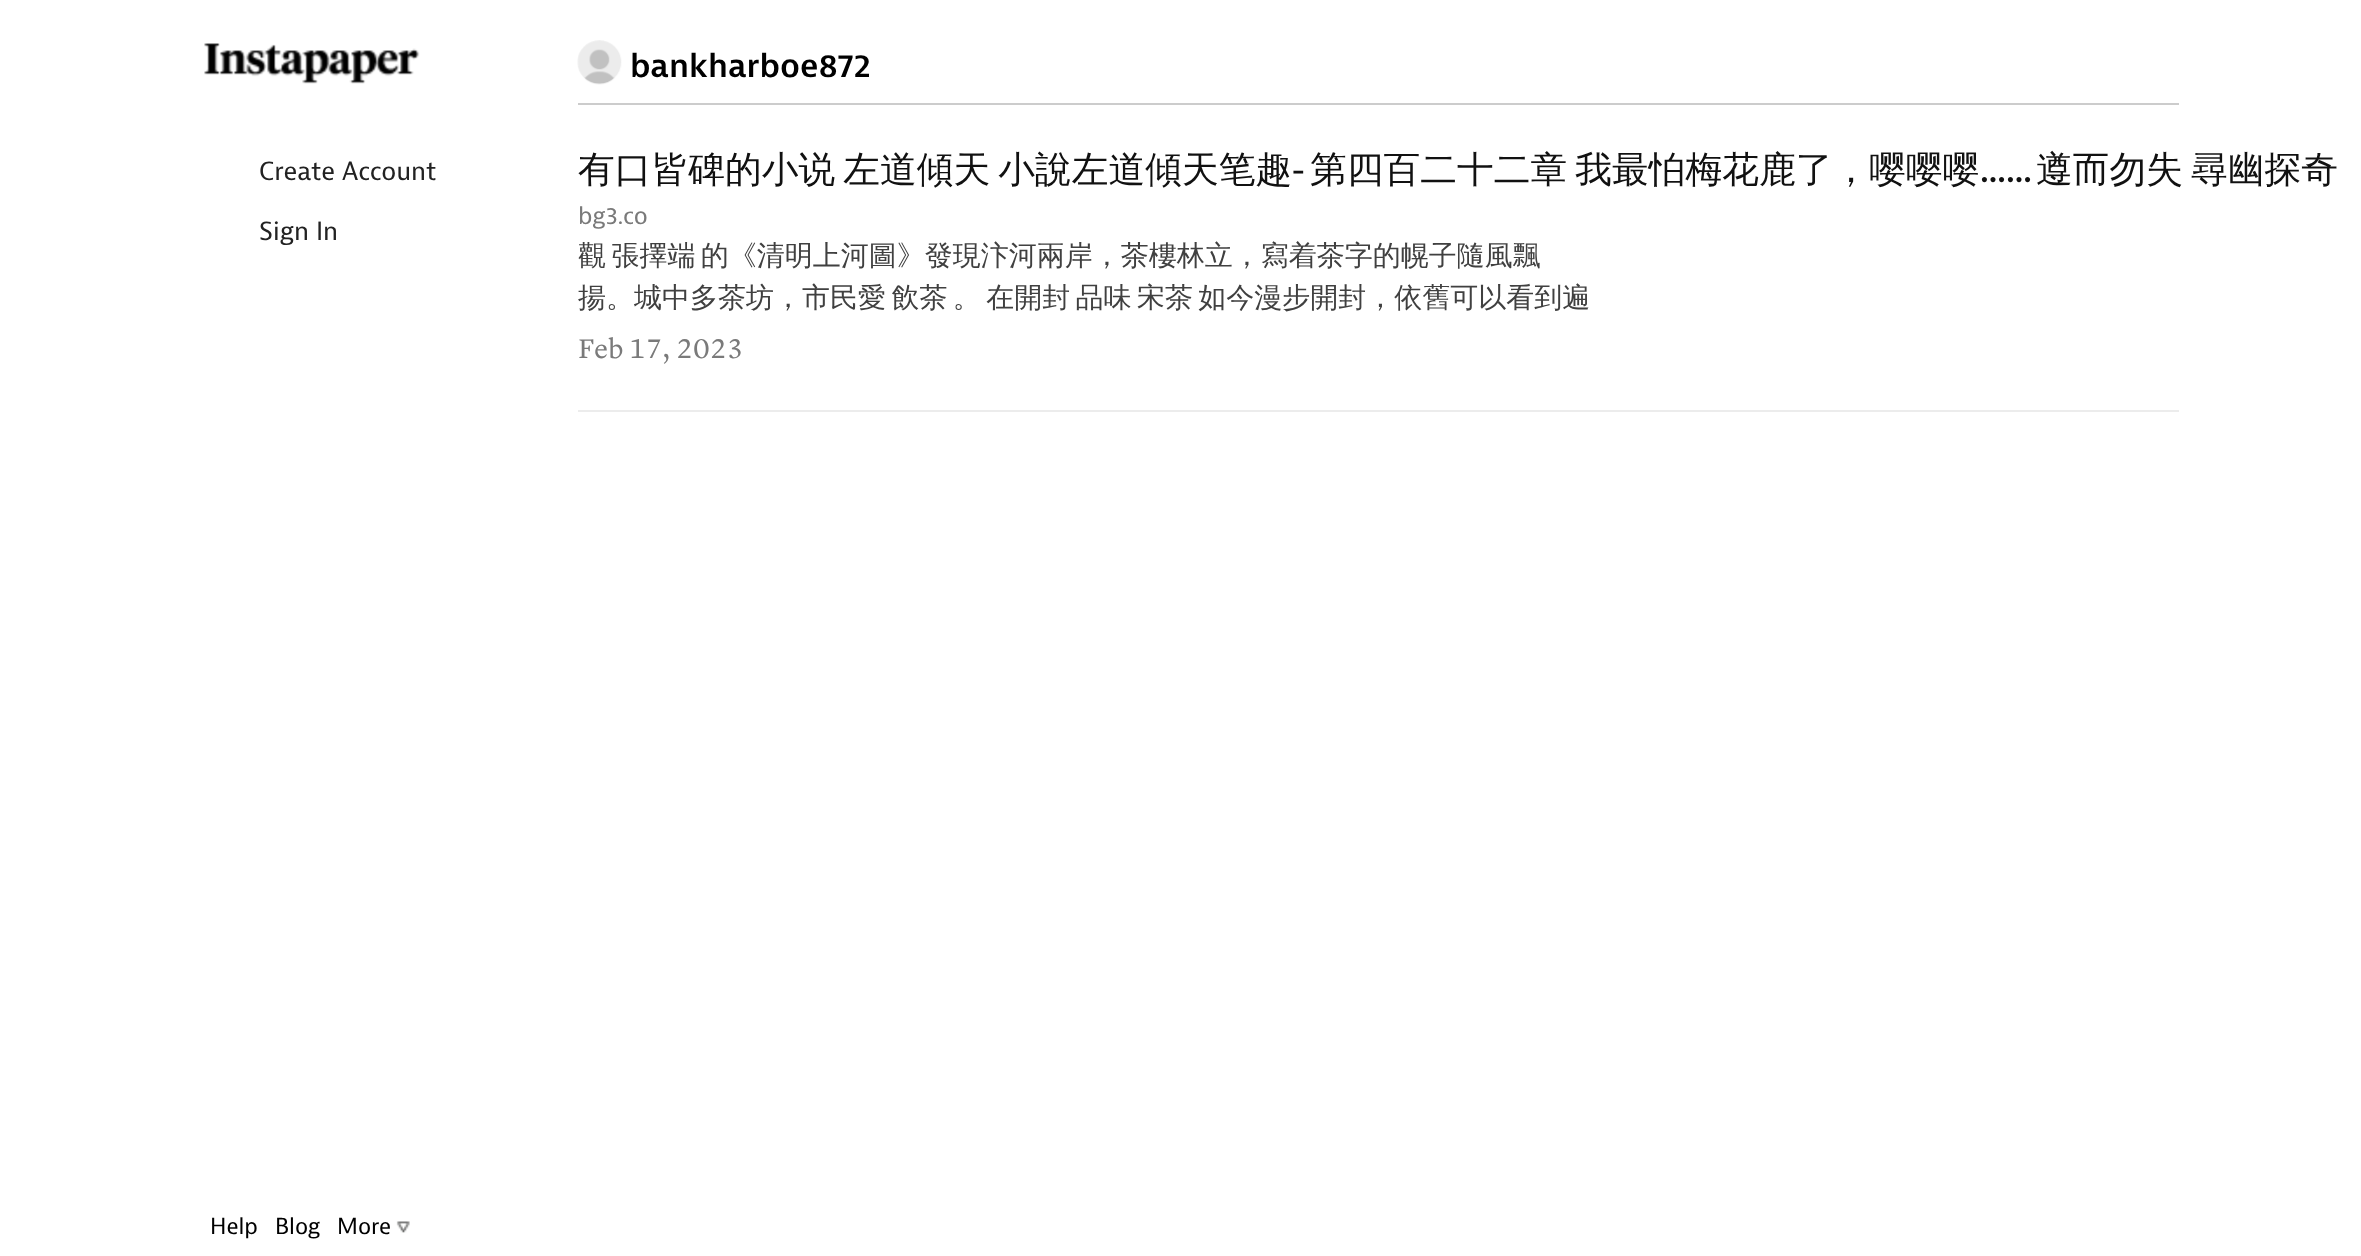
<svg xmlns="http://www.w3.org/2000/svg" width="2361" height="1256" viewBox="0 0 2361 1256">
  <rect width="100%" height="100%" fill="rgb(255,255,255)"/>
  <rect x="578" y="103" width="1601" height="2" fill="rgb(204,204,204)"/>
  <image x="577" y="40" width="45" height="45" href="pic1.png"/>
  <text x="630" y="77" font-family="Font" font-size="33.5" font-weight="600" fill="rgb(0,0,0)">bankharboe872</text>
  <image x="204" y="43" width="216" height="41" href="pic2.png"/>
  <g font-family="Font" font-size="26.25" fill="rgb(34,34,34)">
    <text x="259" y="180">Create Account</text>
    <text x="259" y="240">Sign In</text>
  </g>
  <g font-family="Font" font-size="23" fill="rgb(0,0,0)">
    <text x="210" y="1234">Help</text>
    <text x="275" y="1234">Blog</text>
    <text x="337" y="1234">More</text>
  </g>
  <image x="396" y="1221" width="14" height="12" href="pic3.png"/>
  <rect x="578" y="410" width="1601" height="2" fill="rgb(236,236,236)"/>
  <text x="578" y="182" word-spacing="-3" font-family="WenQuanYi Zen Hei" font-size="36.75" font-weight="500" fill="rgb(17,17,17)">有口皆碑的小说 左道傾天 小說左道傾天笔趣</text>
  <text x="1292" y="182" font-family="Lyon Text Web" font-size="36.75" fill="rgb(17,17,17)">-</text>
  <g font-family="WenQuanYi Zen Hei" font-size="36.75" font-weight="500" fill="rgb(17,17,17)">
    <text x="1310" y="182" word-spacing="-3">第四百二十二章 我最怕梅花鹿了，嘤嘤嘤</text>
    <text x="2036" y="182" word-spacing="-3">遵而勿失 尋幽探奇</text>
  </g>
  <text x="1980" y="182" font-family="Lyon Text Web" font-size="36.75" fill="rgb(17,17,17)">……</text>
  <text x="578" y="224" font-family="Font" font-size="24.5" fill="rgb(122,122,122)">bg3.co</text>
  <g font-family="WenQuanYi Zen Hei" font-size="28" font-weight="500" fill="rgb(64,64,64)">
    <text>
      <tspan x="578" y="265" word-spacing="-3">觀 張擇端 的《清明上河圖》發現汴河兩岸，茶樓林立，寫着茶字的幌子隨風飄</tspan>
      <tspan x="578" y="307" word-spacing="-3">揚。城中多茶坊，市民愛 飲茶 。 在開封 品味 宋茶 如今漫步開封，依舊可以看到遍</tspan>
    </text>
  </g>
  <text x="578" y="358" font-family="Lyon Text Web" font-size="28" fill="rgb(122,122,122)">Feb 17, 2023</text>
</svg>
